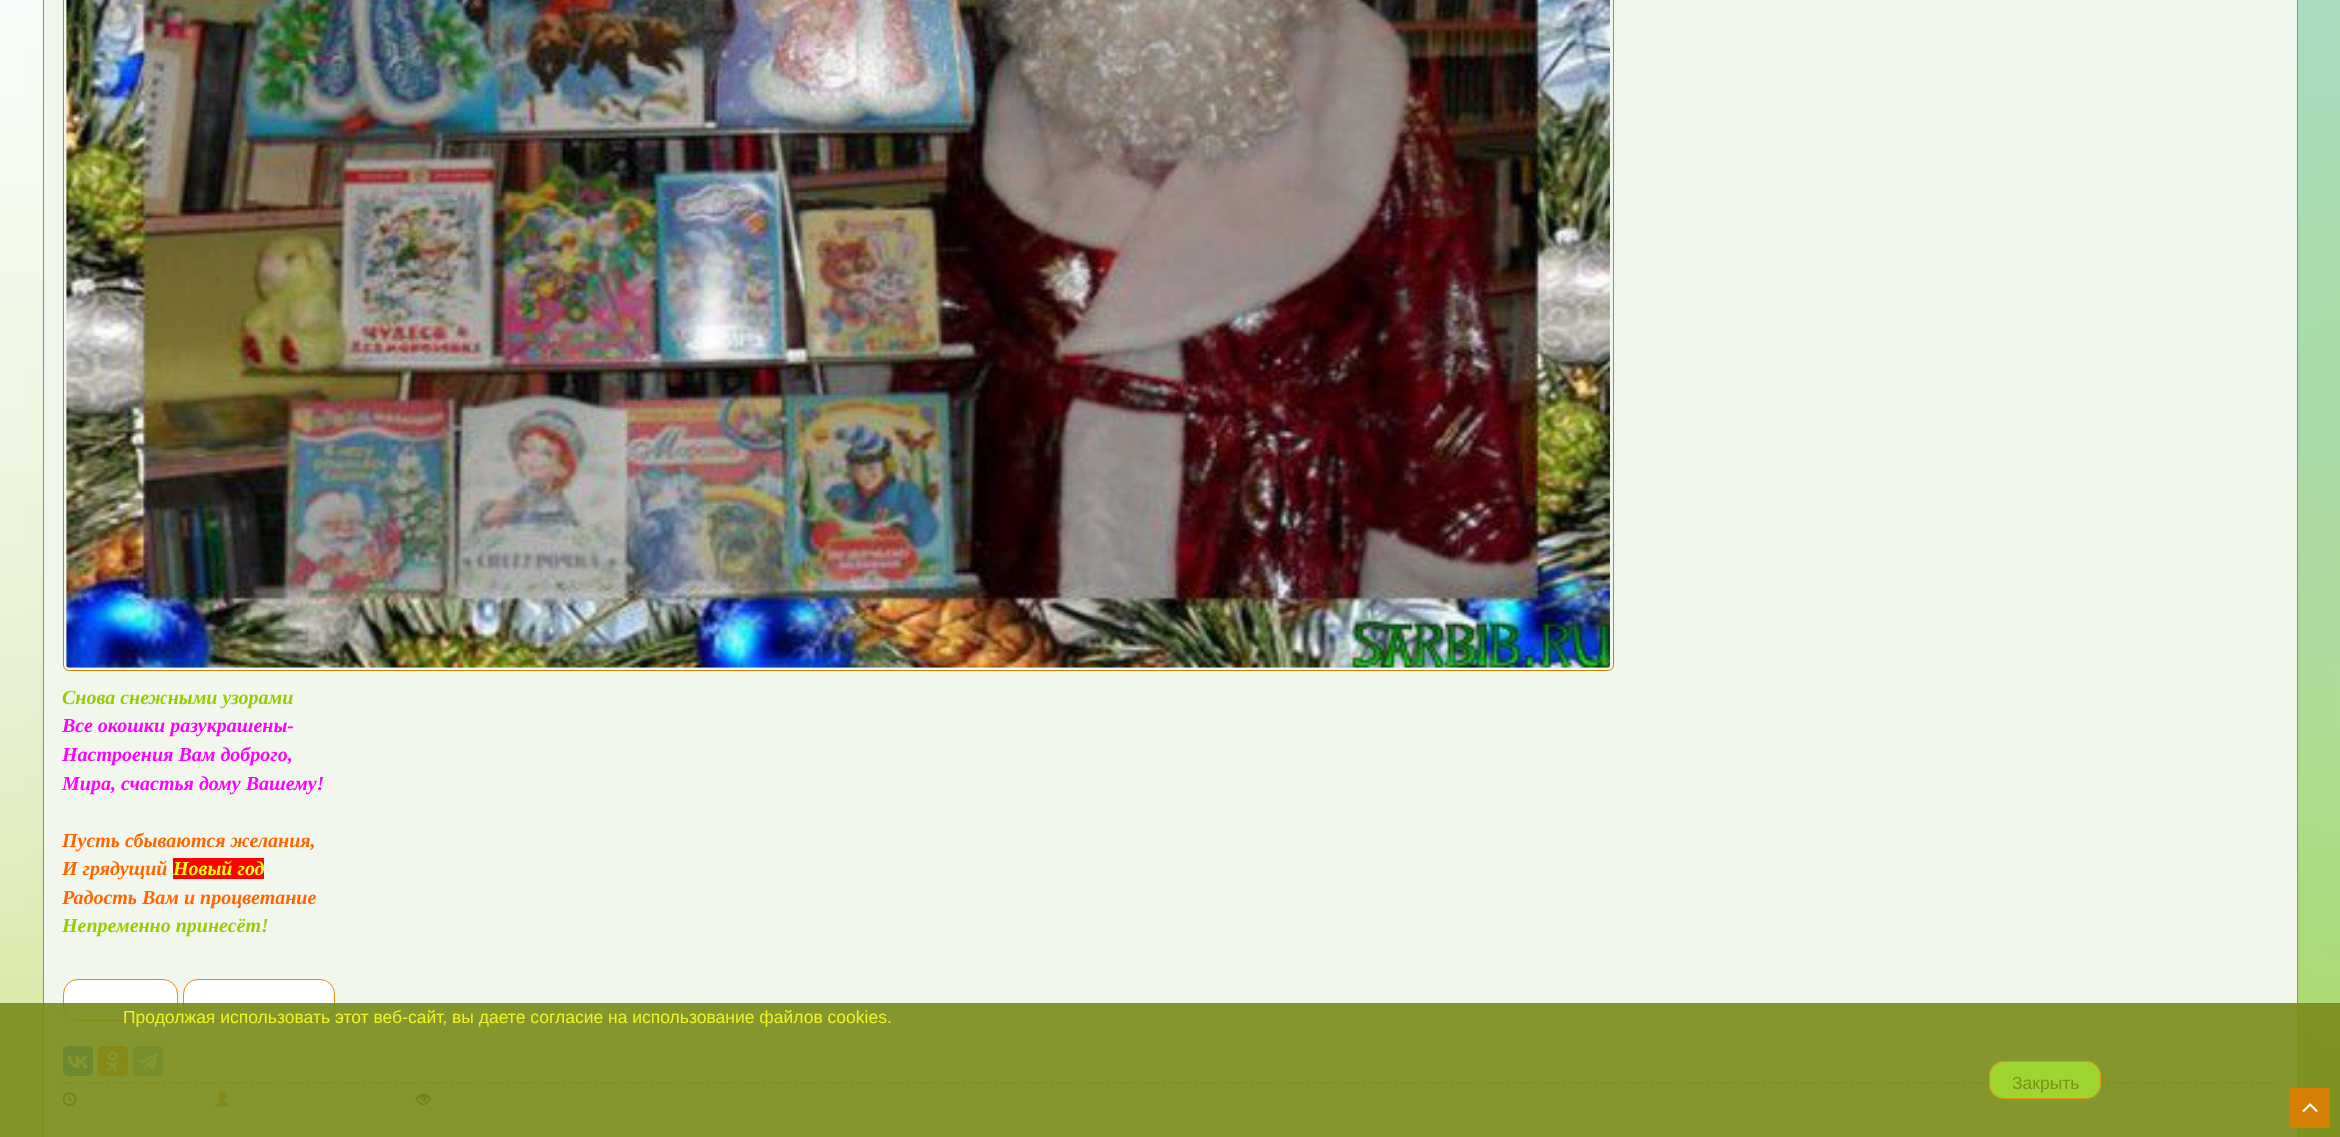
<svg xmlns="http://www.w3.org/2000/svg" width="2340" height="1137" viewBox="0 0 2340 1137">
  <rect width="100%" height="100%" fill="rgb(255,255,255)"/>
  <image x="0" y="0" width="2340" height="1137" href="pic1.png"/>
  <rect x="43.5" y="-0.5" width="2254" height="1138" fill="rgb(242,247,237)" stroke="rgb(213,128,2)"/>
  <rect x="63.5" y="-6.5" width="1550" height="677" rx="5.5" fill="none" stroke="rgb(213,128,2)"/>
  <image x="66" y="0" width="1544" height="668" href="pic2.png"/>
  <text x="62" y="704" font-family="Liberation Serif" font-size="20" font-weight="bold" font-style="italic" fill="rgb(153,204,0)">Снова снежными узорами</text>
  <g font-family="Liberation Serif" font-size="20" font-weight="bold" font-style="italic" fill="rgb(255,0,255)">
    <text>
      <tspan x="62" y="732">Все окошки разукрашены-</tspan>
      <tspan x="62" y="761">Настроения Вам доброго,</tspan>
      <tspan x="62" y="790">Мира, счастья дому Вашему!</tspan>
    </text>
  </g>
  <g font-family="Liberation Serif" font-size="20" font-weight="bold" font-style="italic" fill="rgb(255,102,0)">
    <text>
      <tspan x="62" y="847">Пусть сбываются желания,</tspan>
      <tspan x="62" y="875">И грядущий</tspan>
    </text>
  </g>
  <rect x="173" y="858" width="91" height="21" fill="rgb(255,0,0)"/>
  <text x="173" y="875" font-family="Liberation Serif" font-size="20" font-weight="bold" font-style="italic" fill="rgb(255,255,0)">Новый год</text>
  <text x="62" y="904" font-family="Liberation Serif" font-size="20" font-weight="bold" font-style="italic" fill="rgb(255,102,0)">Радость Вам и процветание</text>
  <text x="62" y="932" font-family="Liberation Serif" font-size="20" font-weight="bold" font-style="italic" fill="rgb(153,204,0)">Непременно принесёт!</text>
  <rect x="63.5" y="979.5" width="114" height="41" rx="14.5" fill="rgb(255,255,255)" stroke="rgb(230,142,10)"/>
  <rect x="183.5" y="979.5" width="151" height="41" rx="14.5" fill="rgb(255,255,255)" stroke="rgb(230,142,10)"/>
  <rect x="63" y="1046" width="30" height="30" rx="5" fill="rgb(0,119,255)"/>
  <image x="67" y="1055" width="21" height="13" href="pic3.png"/>
  <rect x="98" y="1046" width="30" height="30" rx="5" fill="rgb(255,119,0)"/>
  <image x="105" y="1051" width="15" height="21" href="pic4.png"/>
  <rect x="133" y="1046" width="30" height="30" rx="5" fill="rgb(100,169,220)"/>
  <image x="137" y="1053" width="21" height="18" href="pic5.png"/>
  <path d="M62.5 1083H2277.5" fill="none" stroke="rgb(213,128,2)" stroke-width="1.2" stroke-dasharray="3.75 2.5"/>
  <image x="62" y="1092" width="15" height="14" href="pic6.png"/>
  <image x="215" y="1092" width="15" height="15" href="pic7.png"/>
  <image x="415" y="1093" width="16" height="12" href="pic8.png"/>
  <rect x="0" y="1003" width="2340" height="134" fill="rgba(121,139,24,0.9)"/>
  <text x="123" y="1023" font-family="Liberation Sans" font-size="17.5" fill="rgb(240,244,38)">Продолжая использовать этот веб-сайт, вы даете согласие на использование файлов cookies.</text>
  <rect x="1989" y="1061" width="112" height="38" rx="15" fill="rgba(162,220,48,0.9)"/>
  <rect x="1989.5" y="1061.5" width="111" height="37" rx="14.5" fill="none" stroke="rgba(230,142,10,0.9)"/>
  <text x="2012" y="1089" font-family="Liberation Sans" font-size="17.5" fill="rgb(125,146,26)">Закрыть</text>
  <rect x="2290" y="1088" width="40" height="40" rx="1" fill="rgb(213,128,2)"/>
  <image x="2302" y="1103" width="16" height="10" href="pic9.png"/>
</svg>
